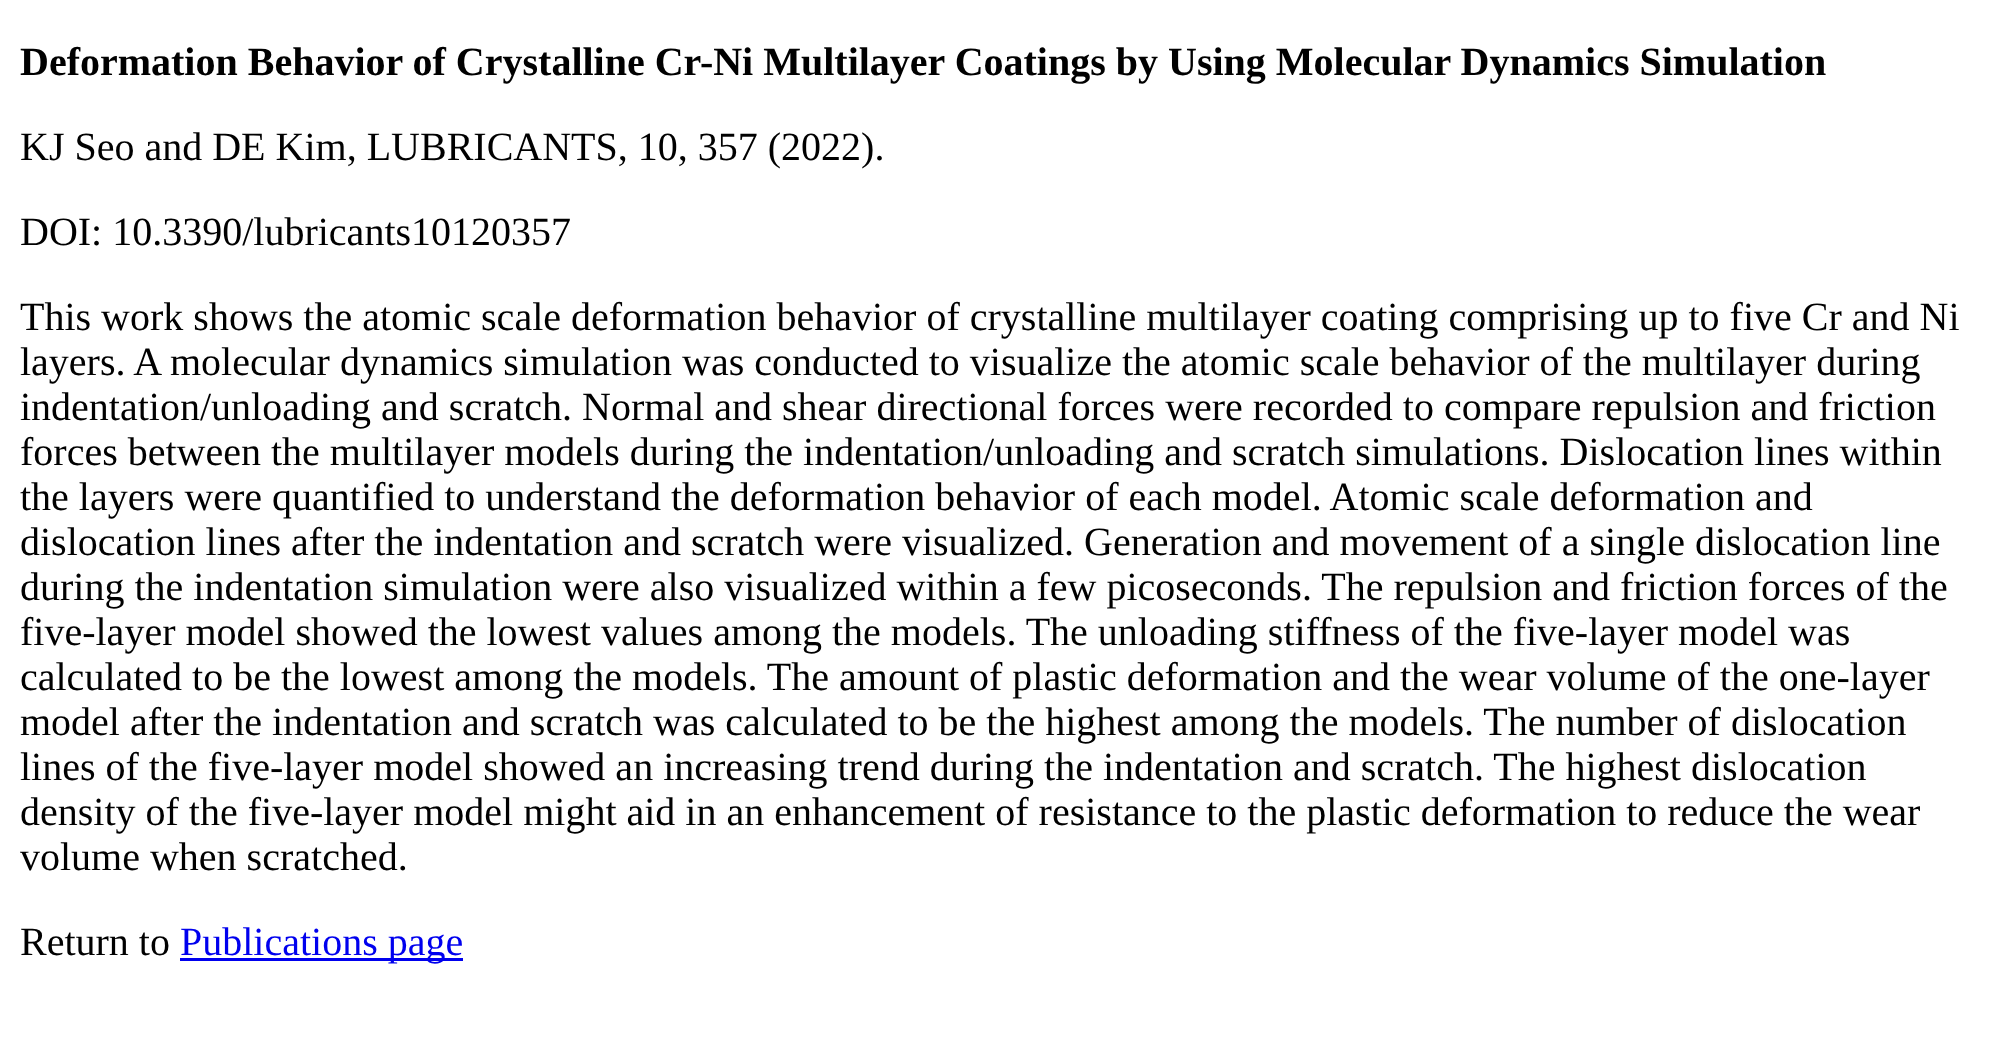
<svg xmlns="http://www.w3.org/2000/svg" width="2003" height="1041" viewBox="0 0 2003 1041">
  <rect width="100%" height="100%" fill="rgb(255,255,255)"/>
  <text x="20" y="75" font-family="Liberation Serif" font-size="40" font-weight="bold" fill="rgb(0,0,0)">Deformation Behavior of Crystalline Cr-Ni Multilayer Coatings by Using Molecular Dynamics Simulation</text>
  <g font-family="Liberation Serif" font-size="40" fill="rgb(0,0,0)">
    <text x="20" y="160">KJ Seo and DE Kim, LUBRICANTS, 10, 357 (2022).</text>
    <text x="20" y="245">DOI: 10.3390/lubricants10120357</text>
    <text>
      <tspan x="20" y="330">This work shows the atomic scale deformation behavior of crystalline multilayer coating comprising up to five Cr and Ni</tspan>
      <tspan x="20" y="375">layers. A molecular dynamics simulation was conducted to visualize the atomic scale behavior of the multilayer during</tspan>
      <tspan x="20" y="420">indentation/unloading and scratch. Normal and shear directional forces were recorded to compare repulsion and friction</tspan>
      <tspan x="20" y="465">forces between the multilayer models during the indentation/unloading and scratch simulations. Dislocation lines within</tspan>
      <tspan x="20" y="510">the layers were quantified to understand the deformation behavior of each model. Atomic scale deformation and</tspan>
      <tspan x="20" y="555">dislocation lines after the indentation and scratch were visualized. Generation and movement of a single dislocation line</tspan>
      <tspan x="20" y="600">during the indentation simulation were also visualized within a few picoseconds. The repulsion and friction forces of the</tspan>
      <tspan x="20" y="645">five-layer model showed the lowest values among the models. The unloading stiffness of the five-layer model was</tspan>
      <tspan x="20" y="690">calculated to be the lowest among the models. The amount of plastic deformation and the wear volume of the one-layer</tspan>
      <tspan x="20" y="735">model after the indentation and scratch was calculated to be the highest among the models. The number of dislocation</tspan>
      <tspan x="20" y="780">lines of the five-layer model showed an increasing trend during the indentation and scratch. The highest dislocation</tspan>
      <tspan x="20" y="825">density of the five-layer model might aid in an enhancement of resistance to the plastic deformation to reduce the wear</tspan>
      <tspan x="20" y="870">volume when scratched.</tspan>
    </text>
    <text x="20" y="955">Return to</text>
  </g>
  <rect x="180" y="958" width="283" height="3" fill="rgb(0,0,238)"/>
  <text x="180" y="955" font-family="Liberation Serif" font-size="40" fill="rgb(0,0,238)">Publications page</text>
</svg>
